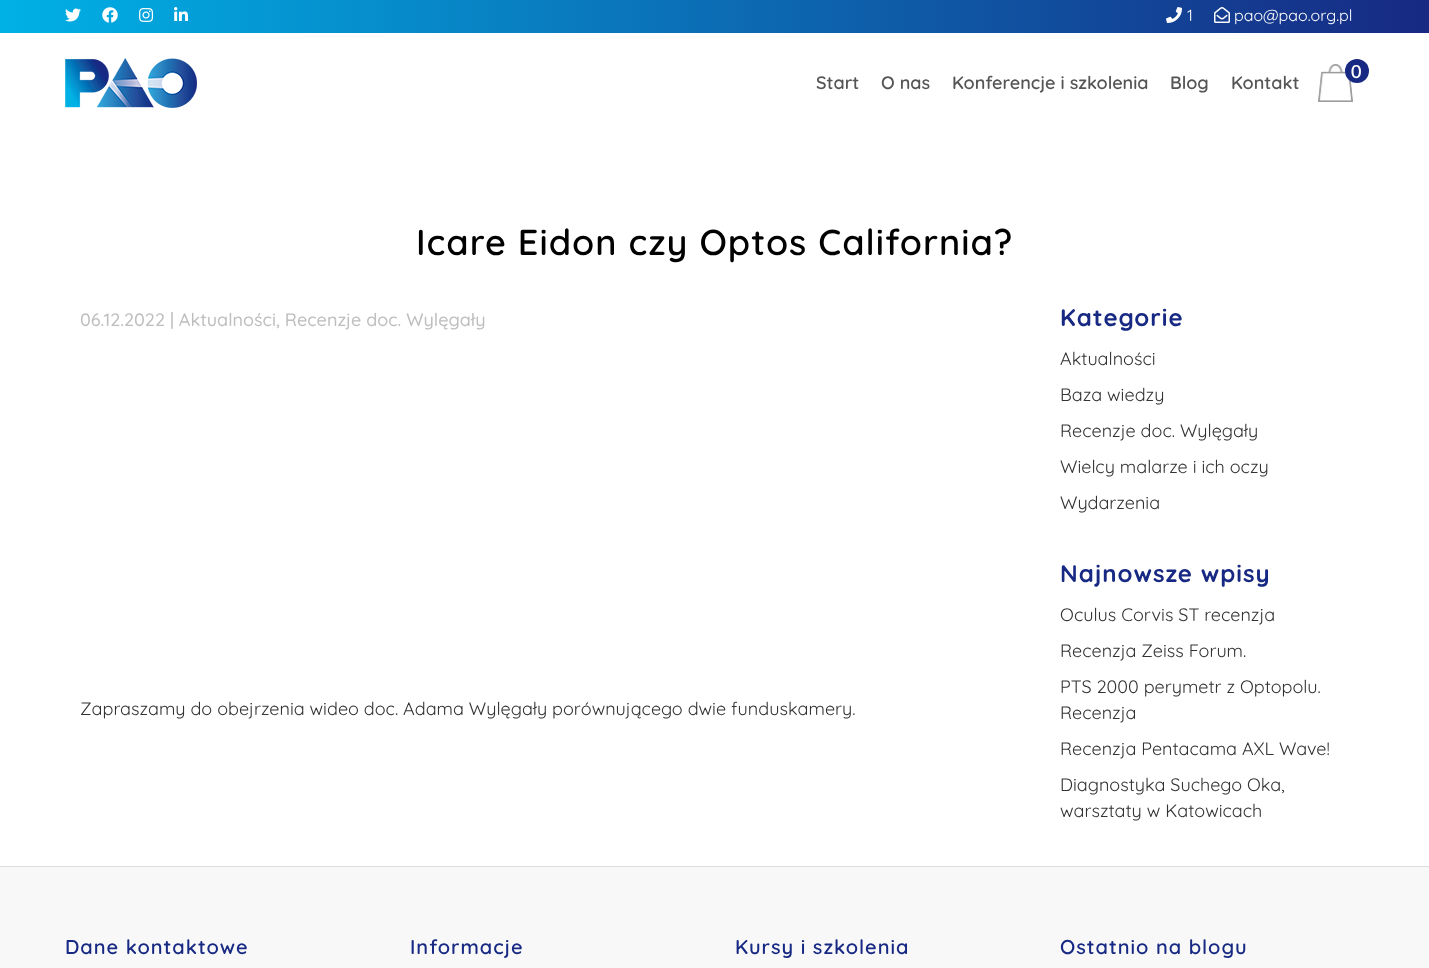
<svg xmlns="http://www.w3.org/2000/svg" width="1429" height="968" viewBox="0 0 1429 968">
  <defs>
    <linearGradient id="g1" gradientUnits="userSpaceOnUse" x1="0" y1="17" x2="1429" y2="16"><stop offset="0" stop-color="rgb(0,177,230)"/><stop offset="1" stop-color="rgb(23,41,131)"/></linearGradient>
  </defs>
  <rect width="100%" height="100%" fill="rgb(255,255,255)"/>
  <rect x="0" y="0" width="1429" height="33" fill="url(#g1)"/>
  <image x="65" y="8" width="16" height="14" href="pic1.png"/>
  <image x="102" y="7" width="16" height="16" href="pic2.png"/>
  <image x="139" y="8" width="15" height="14" href="pic3.png"/>
  <image x="174" y="7" width="14" height="14" href="pic4.png"/>
  <image x="1166" y="7" width="16" height="16" href="pic5.png"/>
  <text x="1187" y="21" font-family="Quicksand" font-size="16" fill="rgb(255,255,255)">1</text>
  <image x="1214" y="7" width="16" height="16" href="pic6.png"/>
  <text x="1234" y="21" font-family="Quicksand" font-size="16" fill="rgb(255,255,255)">pao@pao.org.pl</text>
  <image x="65" y="58" width="132" height="50" href="pic7.png"/>
  <image x="1318" y="64" width="35" height="38" href="pic8.png"/>
  <circle cx="1357" cy="71" r="12" fill="rgb(23,41,131)"/>
  <text x="1351" y="78" font-family="Lato" font-size="18" font-weight="600" fill="rgb(255,255,255)">0</text>
  <g font-family="Quicksand" font-size="18" font-weight="600" fill="rgb(85,85,85)">
    <text x="816" y="89">Start</text>
    <text x="881" y="89">O nas</text>
    <text x="952" y="89">Konferencje i szkolenia</text>
    <text x="1170" y="89">Blog</text>
    <text x="1231" y="89">Kontakt</text>
  </g>
  <text x="416" y="255" font-family="Quicksand" font-size="36" font-weight="600" letter-spacing="1" fill="rgb(0,0,0)">Icare Eidon czy Optos California?</text>
  <text x="80" y="326" font-family="Quicksand" font-size="18" font-weight="500" fill="rgb(190,190,190)">06.12.2022 | Aktualności, Recenzje doc. Wylęgały</text>
  <text x="80" y="715" font-family="Quicksand" font-size="18" fill="rgb(51,51,51)">Zapraszamy do obejrzenia wideo doc. Adama Wylęgały porównującego dwie funduskamery.</text>
  <text x="1060" y="326" font-family="Quicksand" font-size="24" font-weight="bold" letter-spacing="1" fill="rgb(23,41,131)">Kategorie</text>
  <g font-family="Quicksand" font-size="18" fill="rgb(51,51,51)">
    <text x="1060" y="365">Aktualności</text>
    <text x="1060" y="401">Baza wiedzy</text>
    <text x="1060" y="437">Recenzje doc. Wylęgały</text>
    <text x="1060" y="473">Wielcy malarze i ich oczy</text>
    <text x="1060" y="509">Wydarzenia</text>
  </g>
  <text x="1060" y="582" font-family="Quicksand" font-size="24" font-weight="bold" letter-spacing="1" fill="rgb(23,41,131)">Najnowsze wpisy</text>
  <g font-family="Quicksand" font-size="18" fill="rgb(51,51,51)">
    <text x="1060" y="621">Oculus Corvis ST recenzja</text>
    <text x="1060" y="657">Recenzja Zeiss Forum.</text>
    <text>
      <tspan x="1060" y="693">PTS 2000 perymetr z Optopolu.</tspan>
      <tspan x="1060" y="719">Recenzja</tspan>
    </text>
    <text x="1060" y="755">Recenzja Pentacama AXL Wave!</text>
    <text>
      <tspan x="1060" y="791">Diagnostyka Suchego Oka,</tspan>
      <tspan x="1060" y="817">warsztaty w Katowicach</tspan>
    </text>
  </g>
  <rect x="0" y="867" width="1429" height="101" fill="rgb(248,248,248)"/>
  <rect x="0" y="866" width="1429" height="1" fill="rgb(221,221,221)"/>
  <g font-family="Quicksand" font-size="20" font-weight="600" letter-spacing="1" fill="rgb(23,41,131)">
    <text x="65" y="954">Dane kontaktowe</text>
    <text x="410" y="954">Informacje</text>
    <text x="735" y="954">Kursy i szkolenia</text>
    <text x="1060" y="954">Ostatnio na blogu</text>
  </g>
</svg>
